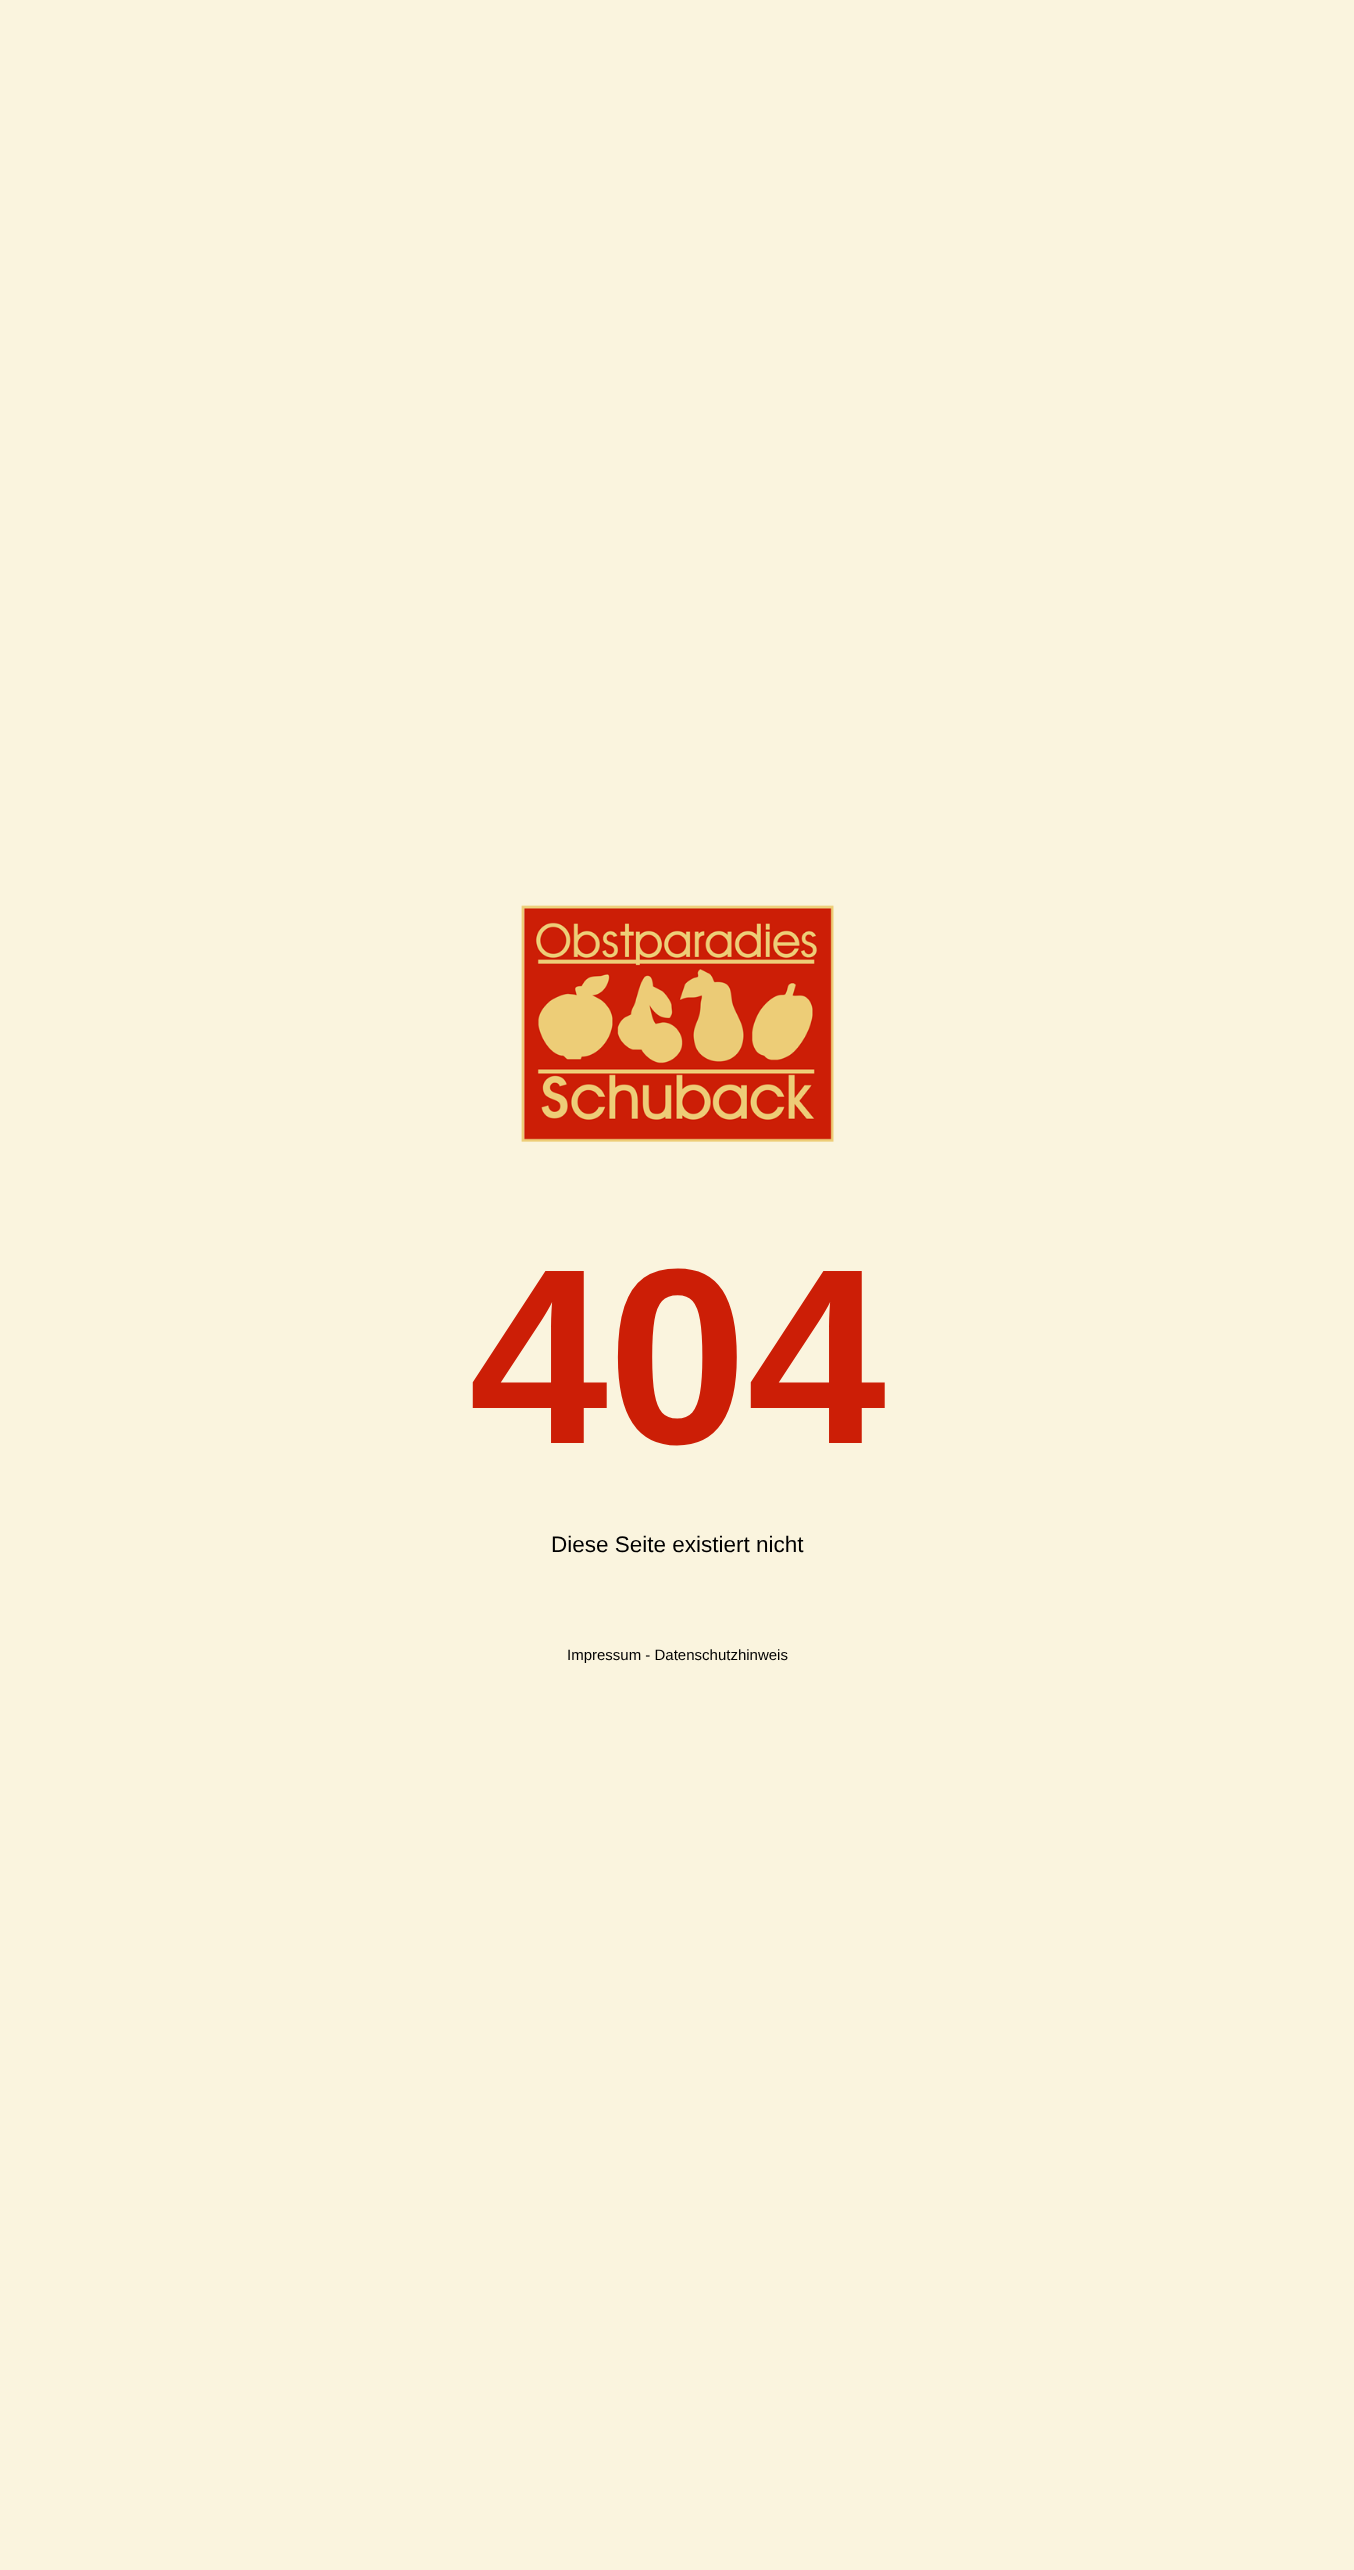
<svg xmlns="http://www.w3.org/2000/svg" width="1354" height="2570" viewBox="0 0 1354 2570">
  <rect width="100%" height="100%" fill="rgb(250,244,222)"/>
  <image x="521" y="905" width="313" height="237" href="pic1.png"/>
  <text x="469" y="1443" font-family="Liberation Sans" font-size="250" font-weight="bold" fill="rgb(204,30,6)">404</text>
  <text x="551" y="1552" font-family="Liberation Sans" font-size="22.5" fill="rgb(0,0,0)">Diese Seite existiert nicht</text>
  <text x="567" y="1660" font-family="Liberation Sans" font-size="15" fill="rgb(0,0,0)">Impressum - Datenschutzhinweis</text>
</svg>
